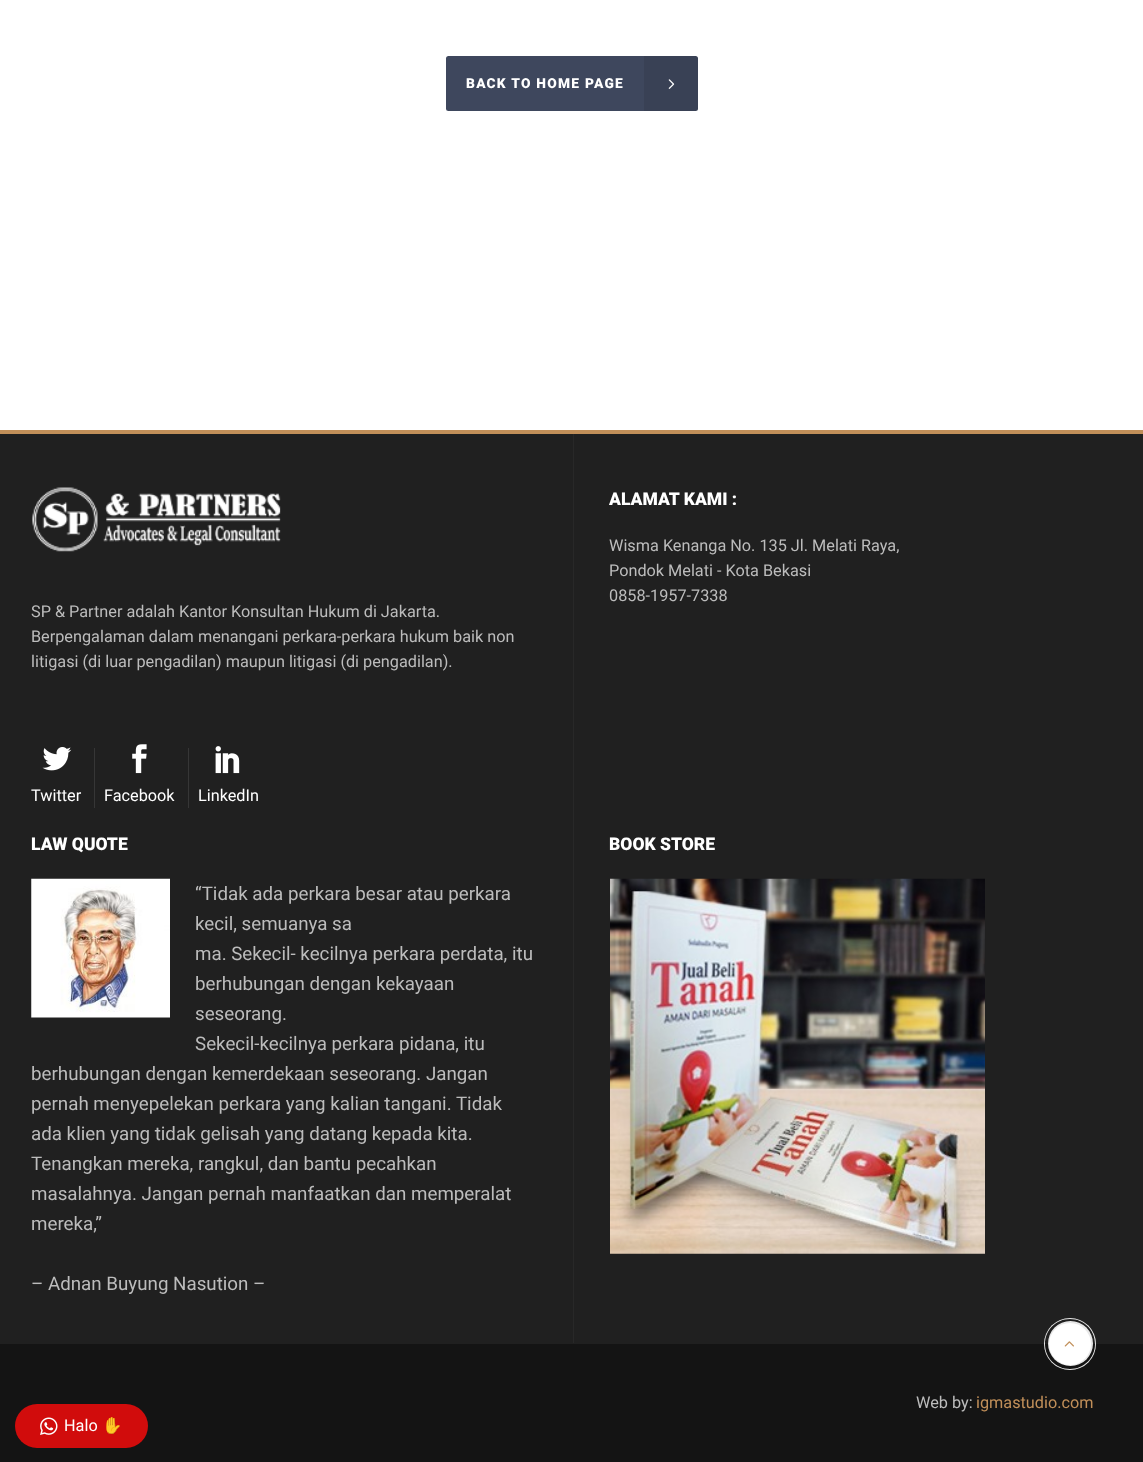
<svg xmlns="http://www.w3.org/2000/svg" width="1143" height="1462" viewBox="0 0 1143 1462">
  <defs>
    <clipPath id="clip1"><path d="M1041 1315H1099V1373H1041ZM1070 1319C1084 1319 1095 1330 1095 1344C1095 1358 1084 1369 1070 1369C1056 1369 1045 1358 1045 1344C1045 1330 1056 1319 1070 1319Z" clip-rule="evenodd"/></clipPath>
  </defs>
  <rect width="100%" height="100%" fill="rgb(255,255,255)"/>
  <rect x="446" y="56" width="252" height="55" rx="2.5" fill="rgb(62,71,93)"/>
  <text x="466" y="88" font-family="Roboto" font-size="13.75" font-weight="900" letter-spacing="1.25" fill="rgb(255,255,255)">BACK TO HOME PAGE</text>
  <path d="M644 56H695.5C697 56 698 57 698 58.5V108.5C698 110 697 111 695.5 111H644Z" fill="rgba(0,0,0,0.08)"/>
  <image x="668" y="79" width="7" height="10" href="pic1.png"/>
  <rect x="0" y="434" width="1143" height="910" fill="rgb(32,32,32)"/>
  <rect x="0" y="430" width="1143" height="4" fill="rgb(193,143,89)"/>
  <rect x="573" y="434" width="1" height="909" fill="rgb(40,40,40)"/>
  <text x="609" y="505" font-family="Roboto" font-size="17.5" font-weight="900" fill="rgb(255,255,255)">ALAMAT KAMI :</text>
  <g font-family="Roboto" font-size="16.25" fill="rgb(188,188,188)">
    <text>
      <tspan x="609" y="551">Wisma Kenanga No. 135 Jl. Melati Raya,</tspan>
      <tspan x="609" y="576">Pondok Melati - Kota Bekasi</tspan>
      <tspan x="609" y="601">0858-1957-7338</tspan>
    </text>
  </g>
  <image x="32" y="487" width="249" height="65" href="pic2.png"/>
  <g font-family="Roboto" font-size="16.25" fill="rgb(188,188,188)">
    <text>
      <tspan x="31" y="617">SP &amp; Partner adalah Kantor Konsultan Hukum di Jakarta.</tspan>
      <tspan x="31" y="642">Berpengalaman dalam menangani perkara-perkara hukum baik non</tspan>
      <tspan x="31" y="667">litigasi (di luar pengadilan) maupun litigasi (di pengadilan).</tspan>
    </text>
  </g>
  <image x="42" y="747" width="30" height="24" href="pic3.png"/>
  <text x="31" y="801" font-family="Roboto" font-size="16.25" fill="rgb(255,255,255)">Twitter</text>
  <rect x="94" y="748" width="1" height="60" fill="rgb(54,54,54)"/>
  <image x="132" y="744" width="15" height="30" href="pic4.png"/>
  <text x="104" y="801" font-family="Roboto" font-size="16.25" fill="rgb(255,255,255)">Facebook</text>
  <rect x="188" y="748" width="1" height="60" fill="rgb(54,54,54)"/>
  <image x="215" y="746" width="25" height="28" href="pic5.png"/>
  <text x="198" y="801" font-family="Roboto" font-size="16.25" fill="rgb(255,255,255)">LinkedIn</text>
  <text x="31" y="850" font-family="Roboto" font-size="17.5" font-weight="900" fill="rgb(255,255,255)">LAW QUOTE</text>
  <image x="31" y="878" width="139" height="140" href="pic6.png"/>
  <g font-family="Roboto" font-size="18.75" fill="rgb(188,188,188)">
    <text>
      <tspan x="195" y="900">“Tidak ada perkara besar atau perkara</tspan>
      <tspan x="195" y="930">kecil, semuanya sa</tspan>
      <tspan x="195" y="960">ma. Sekecil- kecilnya perkara perdata, itu</tspan>
      <tspan x="195" y="990">berhubungan dengan kekayaan</tspan>
      <tspan x="195" y="1020">seseorang.</tspan>
      <tspan x="195" y="1050">Sekecil-kecilnya perkara pidana, itu</tspan>
    </text>
    <text>
      <tspan x="31" y="1080">berhubungan dengan kemerdekaan seseorang. Jangan</tspan>
      <tspan x="31" y="1110">pernah menyepelekan perkara yang kalian tangani. Tidak</tspan>
      <tspan x="31" y="1140">ada klien yang tidak gelisah yang datang kepada kita.</tspan>
      <tspan x="31" y="1170">Tenangkan mereka, rangkul, dan bantu pecahkan</tspan>
      <tspan x="31" y="1200">masalahnya. Jangan pernah manfaatkan dan memperalat</tspan>
      <tspan x="31" y="1230">mereka,”</tspan>
    </text>
    <text x="31" y="1290">– Adnan Buyung Nasution –</text>
  </g>
  <text x="609" y="850" font-family="Roboto" font-size="17.5" font-weight="900" fill="rgb(255,255,255)">BOOK STORE</text>
  <image x="610" y="878" width="375" height="376" href="pic7.png"/>
  <rect x="0" y="1344" width="1143" height="118" fill="rgb(20,20,20)"/>
  <text x="916" y="1408" font-family="Roboto" font-size="16.25" fill="rgb(188,188,188)">Web by:</text>
  <text x="976" y="1408" font-family="Roboto" font-size="16.25" fill="rgb(193,143,89)">igmastudio.com</text>
  <rect x="1048" y="1321" width="45" height="45" rx="22.5" fill="rgb(231,231,231)" filter="blur(0.5px)"/>
  <g clip-path="url(#clip1)">
    <rect x="1044" y="1318" width="52" height="52" rx="26" fill="rgb(231,231,231)" filter="blur(0.5px)"/>
  </g>
  <circle cx="1070" cy="1344" r="21" fill="rgb(255,255,255)"/>
  <image x="1064" y="1341" width="10" height="6" href="pic8.png"/>
  <rect x="15" y="1404" width="133" height="44" rx="22" fill="rgb(209,12,12)"/>
  <image x="40" y="1417" width="18" height="18" href="pic9.png"/>
  <text x="64" y="1431" font-family="Roboto" font-size="16.25" fill="rgb(255,255,255)">Halo</text>
  <text x="102" y="1431" font-family="Noto Color Emoji" font-size="16.25" fill="rgb(255,255,255)">✋</text>
</svg>
